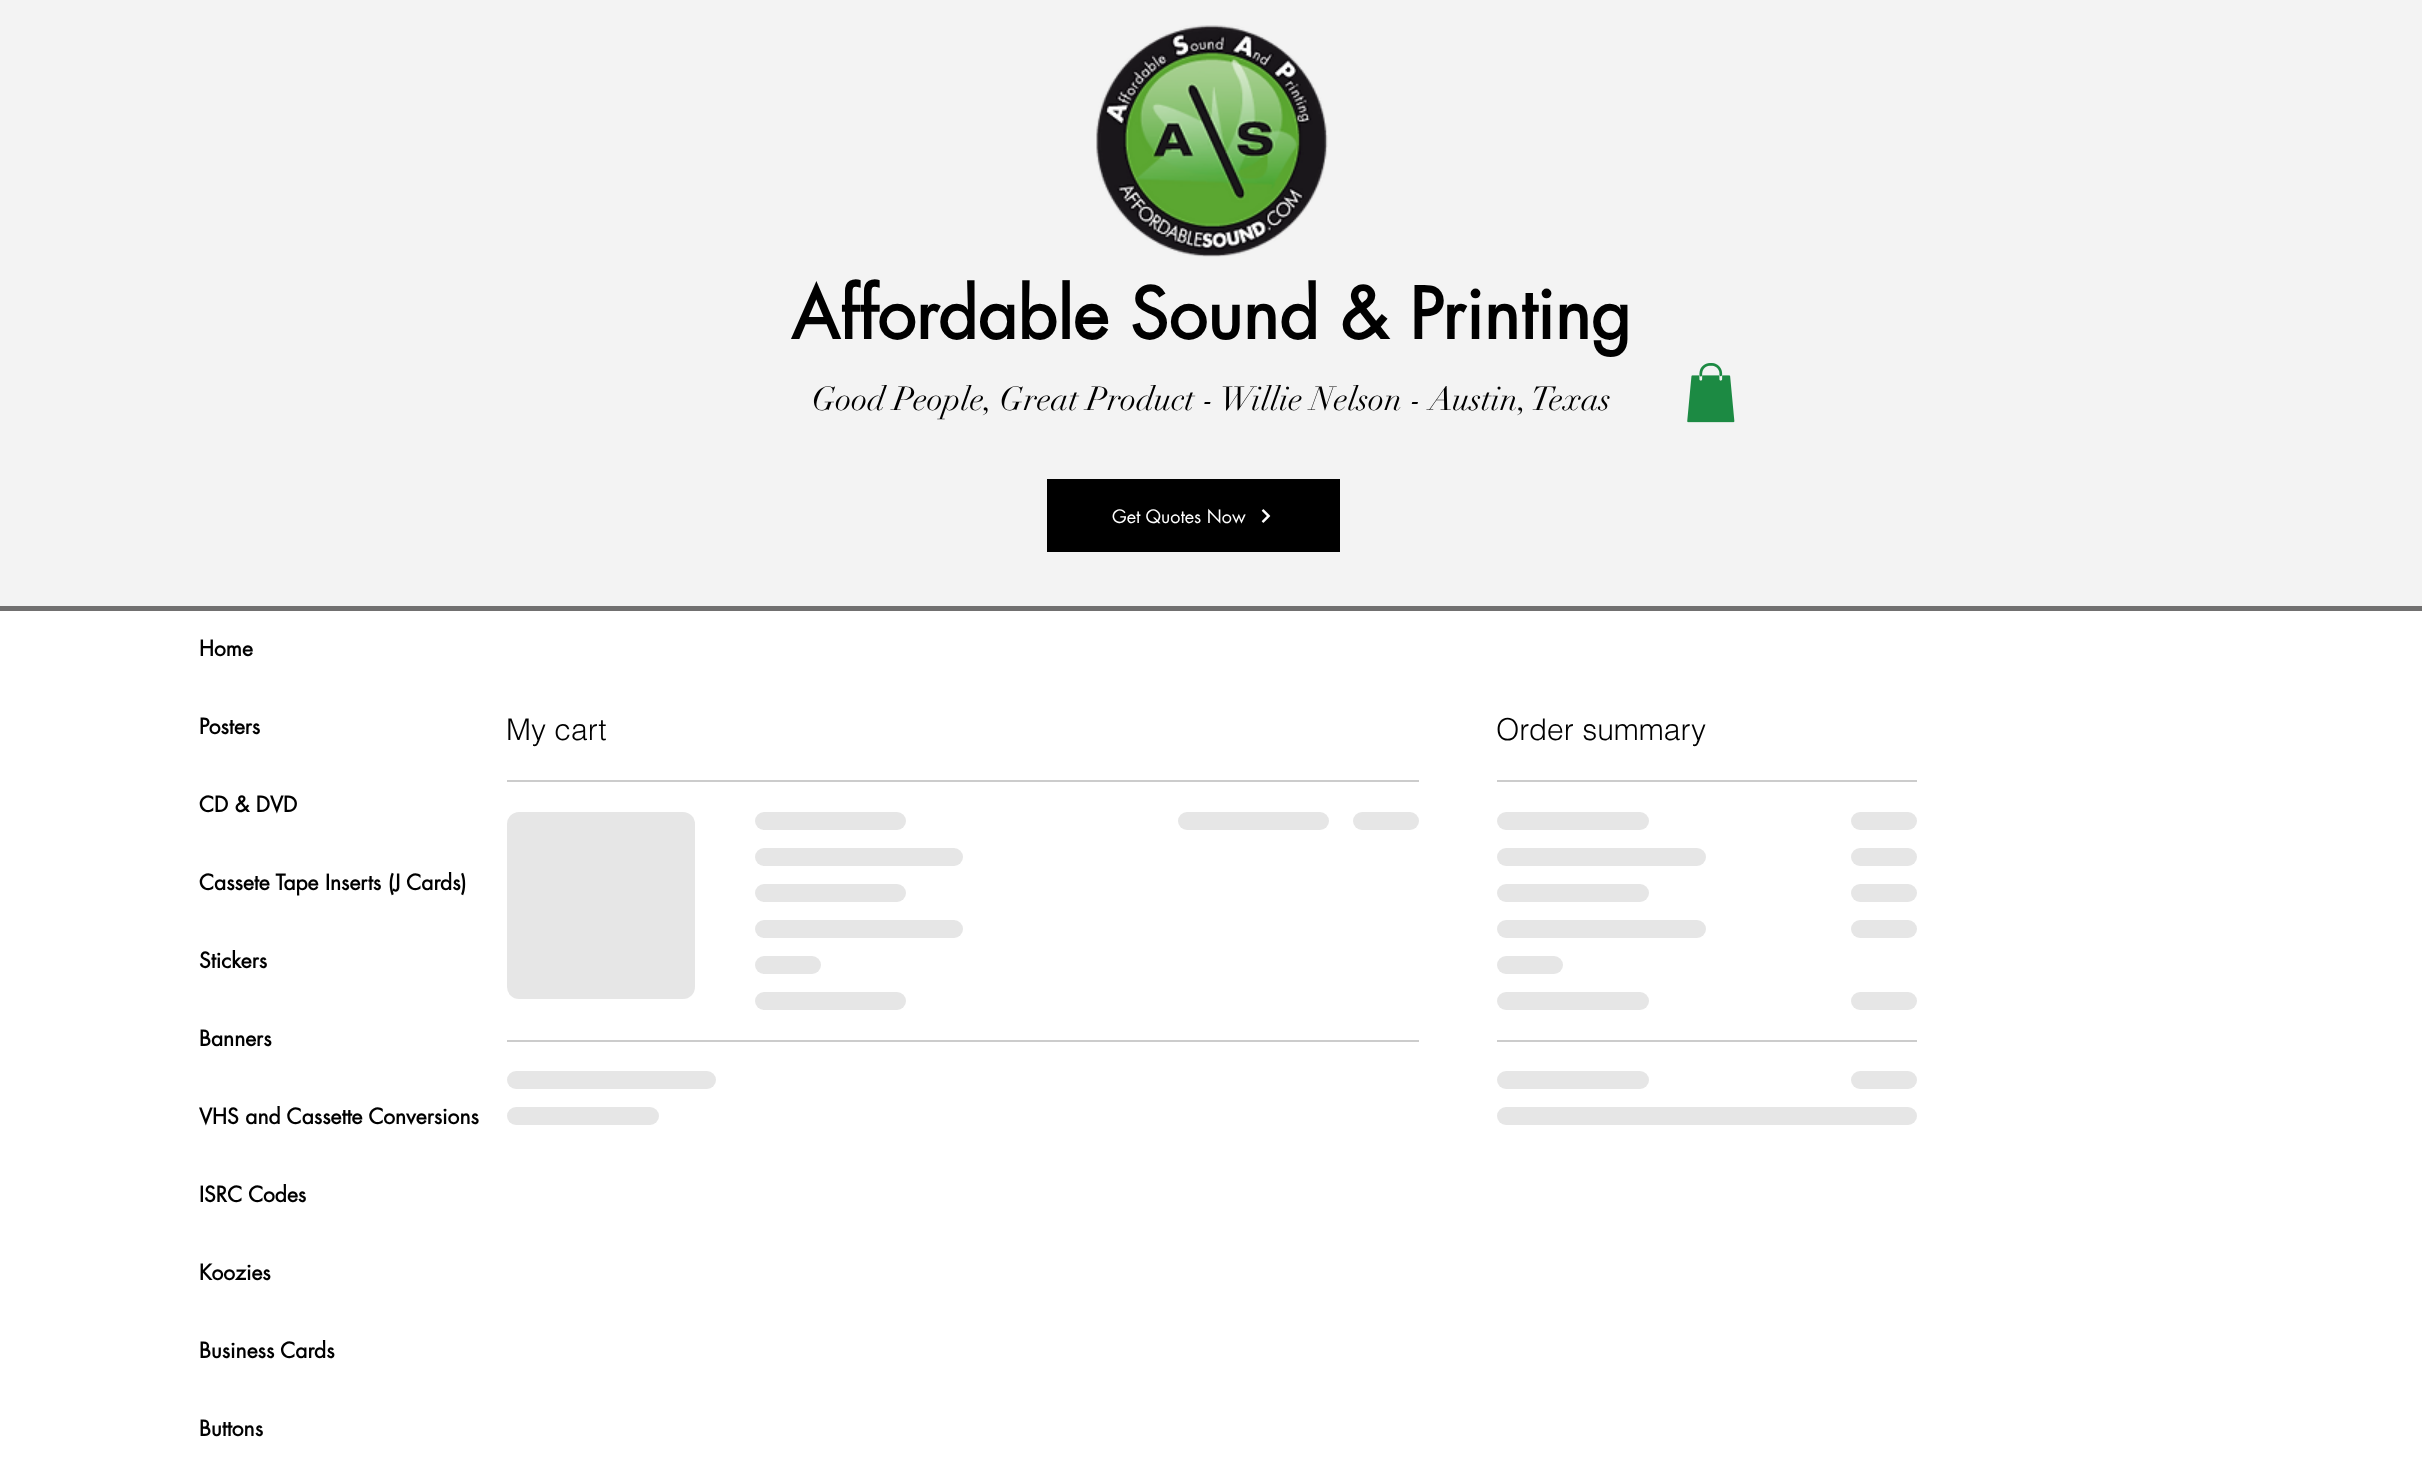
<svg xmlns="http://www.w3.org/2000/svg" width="2422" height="1465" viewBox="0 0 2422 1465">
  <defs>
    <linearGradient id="g1" gradientUnits="userSpaceOnUse" x1="507" y1="905" x2="1257" y2="905"><stop offset="0.25" stop-color="rgb(230,230,230)"/><stop offset="0.37" stop-color="rgb(204,204,204)"/><stop offset="0.63" stop-color="rgb(230,230,230)"/></linearGradient>
    <linearGradient id="g2" gradientUnits="userSpaceOnUse" x1="755" y1="821" x2="1361" y2="821"><stop offset="0.25" stop-color="rgb(230,230,230)"/><stop offset="0.37" stop-color="rgb(204,204,204)"/><stop offset="0.63" stop-color="rgb(230,230,230)"/></linearGradient>
    <linearGradient id="g3" gradientUnits="userSpaceOnUse" x1="755" y1="857" x2="1589" y2="857"><stop offset="0.25" stop-color="rgb(230,230,230)"/><stop offset="0.37" stop-color="rgb(204,204,204)"/><stop offset="0.63" stop-color="rgb(230,230,230)"/></linearGradient>
    <linearGradient id="g4" gradientUnits="userSpaceOnUse" x1="755" y1="893" x2="1361" y2="893"><stop offset="0.25" stop-color="rgb(230,230,230)"/><stop offset="0.37" stop-color="rgb(204,204,204)"/><stop offset="0.63" stop-color="rgb(230,230,230)"/></linearGradient>
    <linearGradient id="g5" gradientUnits="userSpaceOnUse" x1="755" y1="929" x2="1589" y2="929"><stop offset="0.25" stop-color="rgb(230,230,230)"/><stop offset="0.37" stop-color="rgb(204,204,204)"/><stop offset="0.63" stop-color="rgb(230,230,230)"/></linearGradient>
    <linearGradient id="g6" gradientUnits="userSpaceOnUse" x1="755" y1="965" x2="1019" y2="965"><stop offset="0.25" stop-color="rgb(230,230,230)"/><stop offset="0.37" stop-color="rgb(204,204,204)"/><stop offset="0.63" stop-color="rgb(230,230,230)"/></linearGradient>
    <linearGradient id="g7" gradientUnits="userSpaceOnUse" x1="755" y1="1001" x2="1361" y2="1001"><stop offset="0.25" stop-color="rgb(230,230,230)"/><stop offset="0.37" stop-color="rgb(204,204,204)"/><stop offset="0.63" stop-color="rgb(230,230,230)"/></linearGradient>
    <linearGradient id="g8" gradientUnits="userSpaceOnUse" x1="1178" y1="821" x2="1784" y2="821"><stop offset="0.25" stop-color="rgb(230,230,230)"/><stop offset="0.37" stop-color="rgb(204,204,204)"/><stop offset="0.63" stop-color="rgb(230,230,230)"/></linearGradient>
    <linearGradient id="g9" gradientUnits="userSpaceOnUse" x1="1353" y1="821" x2="1617" y2="821"><stop offset="0.25" stop-color="rgb(230,230,230)"/><stop offset="0.37" stop-color="rgb(204,204,204)"/><stop offset="0.63" stop-color="rgb(230,230,230)"/></linearGradient>
    <linearGradient id="g10" gradientUnits="userSpaceOnUse" x1="507" y1="1080" x2="1341" y2="1080"><stop offset="0.25" stop-color="rgb(230,230,230)"/><stop offset="0.37" stop-color="rgb(204,204,204)"/><stop offset="0.63" stop-color="rgb(230,230,230)"/></linearGradient>
    <linearGradient id="g11" gradientUnits="userSpaceOnUse" x1="507" y1="1116" x2="1113" y2="1116"><stop offset="0.25" stop-color="rgb(230,230,230)"/><stop offset="0.37" stop-color="rgb(204,204,204)"/><stop offset="0.63" stop-color="rgb(230,230,230)"/></linearGradient>
    <linearGradient id="g12" gradientUnits="userSpaceOnUse" x1="1497" y1="821" x2="2103" y2="821"><stop offset="0.25" stop-color="rgb(230,230,230)"/><stop offset="0.37" stop-color="rgb(204,204,204)"/><stop offset="0.63" stop-color="rgb(230,230,230)"/></linearGradient>
    <linearGradient id="g13" gradientUnits="userSpaceOnUse" x1="1851" y1="821" x2="2115" y2="821"><stop offset="0.25" stop-color="rgb(230,230,230)"/><stop offset="0.37" stop-color="rgb(204,204,204)"/><stop offset="0.63" stop-color="rgb(230,230,230)"/></linearGradient>
    <linearGradient id="g14" gradientUnits="userSpaceOnUse" x1="1497" y1="857" x2="2331" y2="857"><stop offset="0.25" stop-color="rgb(230,230,230)"/><stop offset="0.37" stop-color="rgb(204,204,204)"/><stop offset="0.63" stop-color="rgb(230,230,230)"/></linearGradient>
    <linearGradient id="g15" gradientUnits="userSpaceOnUse" x1="1851" y1="857" x2="2115" y2="857"><stop offset="0.25" stop-color="rgb(230,230,230)"/><stop offset="0.37" stop-color="rgb(204,204,204)"/><stop offset="0.63" stop-color="rgb(230,230,230)"/></linearGradient>
    <linearGradient id="g16" gradientUnits="userSpaceOnUse" x1="1497" y1="893" x2="2103" y2="893"><stop offset="0.25" stop-color="rgb(230,230,230)"/><stop offset="0.37" stop-color="rgb(204,204,204)"/><stop offset="0.63" stop-color="rgb(230,230,230)"/></linearGradient>
    <linearGradient id="g17" gradientUnits="userSpaceOnUse" x1="1851" y1="893" x2="2115" y2="893"><stop offset="0.25" stop-color="rgb(230,230,230)"/><stop offset="0.37" stop-color="rgb(204,204,204)"/><stop offset="0.63" stop-color="rgb(230,230,230)"/></linearGradient>
    <linearGradient id="g18" gradientUnits="userSpaceOnUse" x1="1497" y1="929" x2="2331" y2="929"><stop offset="0.25" stop-color="rgb(230,230,230)"/><stop offset="0.37" stop-color="rgb(204,204,204)"/><stop offset="0.63" stop-color="rgb(230,230,230)"/></linearGradient>
    <linearGradient id="g19" gradientUnits="userSpaceOnUse" x1="1851" y1="929" x2="2115" y2="929"><stop offset="0.25" stop-color="rgb(230,230,230)"/><stop offset="0.37" stop-color="rgb(204,204,204)"/><stop offset="0.63" stop-color="rgb(230,230,230)"/></linearGradient>
    <linearGradient id="g20" gradientUnits="userSpaceOnUse" x1="1497" y1="965" x2="1761" y2="965"><stop offset="0.25" stop-color="rgb(230,230,230)"/><stop offset="0.37" stop-color="rgb(204,204,204)"/><stop offset="0.63" stop-color="rgb(230,230,230)"/></linearGradient>
    <linearGradient id="g21" gradientUnits="userSpaceOnUse" x1="1497" y1="1001" x2="2103" y2="1001"><stop offset="0.25" stop-color="rgb(230,230,230)"/><stop offset="0.37" stop-color="rgb(204,204,204)"/><stop offset="0.63" stop-color="rgb(230,230,230)"/></linearGradient>
    <linearGradient id="g22" gradientUnits="userSpaceOnUse" x1="1851" y1="1001" x2="2115" y2="1001"><stop offset="0.25" stop-color="rgb(230,230,230)"/><stop offset="0.37" stop-color="rgb(204,204,204)"/><stop offset="0.63" stop-color="rgb(230,230,230)"/></linearGradient>
    <linearGradient id="g23" gradientUnits="userSpaceOnUse" x1="1497" y1="1080" x2="2103" y2="1080"><stop offset="0.25" stop-color="rgb(230,230,230)"/><stop offset="0.37" stop-color="rgb(204,204,204)"/><stop offset="0.63" stop-color="rgb(230,230,230)"/></linearGradient>
    <linearGradient id="g24" gradientUnits="userSpaceOnUse" x1="1851" y1="1080" x2="2115" y2="1080"><stop offset="0.25" stop-color="rgb(230,230,230)"/><stop offset="0.37" stop-color="rgb(204,204,204)"/><stop offset="0.63" stop-color="rgb(230,230,230)"/></linearGradient>
    <linearGradient id="g25" gradientUnits="userSpaceOnUse" x1="1497" y1="1116" x2="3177" y2="1116"><stop offset="0.25" stop-color="rgb(230,230,230)"/><stop offset="0.37" stop-color="rgb(204,204,204)"/><stop offset="0.63" stop-color="rgb(230,230,230)"/></linearGradient>
  </defs>
  <rect width="100%" height="100%" fill="rgb(255,255,255)"/>
  <rect x="0" y="0" width="2422" height="606" fill="rgb(243,243,243)"/>
  <rect x="0" y="606" width="2422" height="5" fill="rgb(113,112,112)"/>
  <image x="1096" y="25" width="232" height="232" href="pic1.png"/>
  <text x="791" y="339" font-family="futura" font-size="69" font-weight="bold" fill="rgb(0,0,0)">Affordable Sound &amp; Printing</text>
  <text x="812" y="410" font-family="didot" font-size="33" fill="rgb(0,0,0)">Good People, Great Product - Willie Nelson - Austin, Texas</text>
  <image x="1687" y="363" width="48" height="60" href="pic2.png"/>
  <rect x="1047" y="479" width="293" height="73" fill="rgb(0,0,0)"/>
  <text x="1112" y="523" font-family="futura" font-size="18" fill="rgb(255,255,255)">Get Quotes Now</text>
  <image x="1261" y="509" width="10" height="14" href="pic3.png"/>
  <g font-family="futura" font-size="21" font-weight="bold" fill="rgb(0,0,0)">
    <text x="199" y="656">Home</text>
    <text x="199" y="734">Posters</text>
    <text x="199" y="812">CD &amp; DVD</text>
    <text x="199" y="890">Cassete Tape Inserts (J Cards)</text>
    <text x="199" y="968">Stickers</text>
    <text x="199" y="1046">Banners</text>
    <text x="199" y="1124">VHS and Cassette Conversions</text>
    <text x="199" y="1202">ISRC Codes</text>
    <text x="199" y="1280">Koozies</text>
    <text x="199" y="1358">Business Cards</text>
    <text x="199" y="1436">Buttons</text>
  </g>
  <rect x="507" y="780" width="912" height="2" fill="rgb(204,204,204)"/>
  <text x="506" y="740" font-family="helvetica" font-size="30" font-weight="300" fill="rgb(0,0,0)">My cart</text>
  <rect x="507" y="812" width="188" height="187" rx="12" fill="url(#g1)"/>
  <rect x="755" y="812" width="151" height="18" rx="9" fill="url(#g2)"/>
  <rect x="755" y="848" width="208" height="18" rx="9" fill="url(#g3)"/>
  <rect x="755" y="884" width="151" height="18" rx="9" fill="url(#g4)"/>
  <rect x="755" y="920" width="208" height="18" rx="9" fill="url(#g5)"/>
  <rect x="755" y="956" width="66" height="18" rx="9" fill="url(#g6)"/>
  <rect x="755" y="992" width="151" height="18" rx="9" fill="url(#g7)"/>
  <rect x="1178" y="812" width="151" height="18" rx="9" fill="url(#g8)"/>
  <rect x="1353" y="812" width="66" height="18" rx="9" fill="url(#g9)"/>
  <rect x="507" y="1040" width="912" height="2" fill="rgb(204,204,204)"/>
  <rect x="507" y="1071" width="209" height="18" rx="9" fill="url(#g10)"/>
  <rect x="507" y="1107" width="152" height="18" rx="9" fill="url(#g11)"/>
  <rect x="1497" y="780" width="420" height="2" fill="rgb(204,204,204)"/>
  <text x="1496" y="740" font-family="helvetica" font-size="30" font-weight="300" fill="rgb(0,0,0)">Order summary</text>
  <rect x="1497" y="812" width="152" height="18" rx="9" fill="url(#g12)"/>
  <rect x="1851" y="812" width="66" height="18" rx="9" fill="url(#g13)"/>
  <rect x="1497" y="848" width="209" height="18" rx="9" fill="url(#g14)"/>
  <rect x="1851" y="848" width="66" height="18" rx="9" fill="url(#g15)"/>
  <rect x="1497" y="884" width="152" height="18" rx="9" fill="url(#g16)"/>
  <rect x="1851" y="884" width="66" height="18" rx="9" fill="url(#g17)"/>
  <rect x="1497" y="920" width="209" height="18" rx="9" fill="url(#g18)"/>
  <rect x="1851" y="920" width="66" height="18" rx="9" fill="url(#g19)"/>
  <rect x="1497" y="956" width="66" height="18" rx="9" fill="url(#g20)"/>
  <rect x="1497" y="992" width="152" height="18" rx="9" fill="url(#g21)"/>
  <rect x="1851" y="992" width="66" height="18" rx="9" fill="url(#g22)"/>
  <rect x="1497" y="1040" width="420" height="2" fill="rgb(204,204,204)"/>
  <rect x="1497" y="1071" width="152" height="18" rx="9" fill="url(#g23)"/>
  <rect x="1851" y="1071" width="66" height="18" rx="9" fill="url(#g24)"/>
  <rect x="1497" y="1107" width="420" height="18" rx="9" fill="url(#g25)"/>
</svg>
